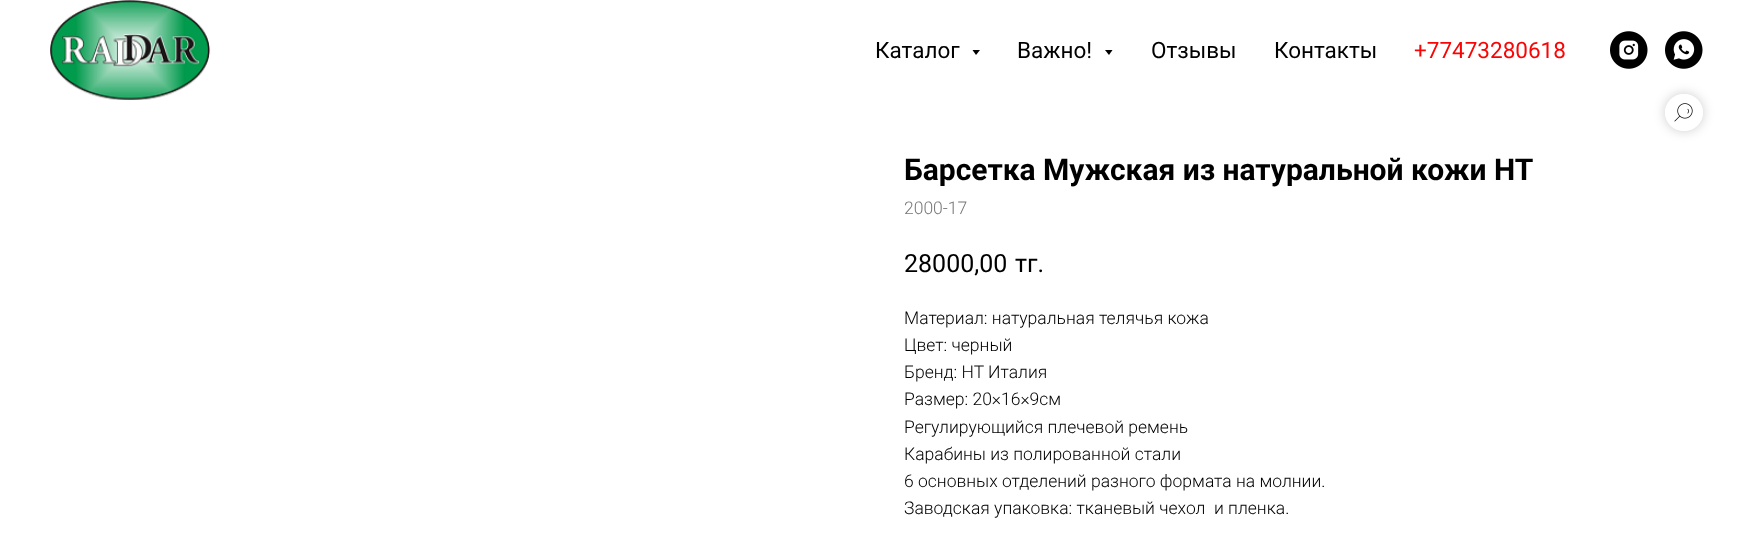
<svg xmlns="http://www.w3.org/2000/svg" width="1758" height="541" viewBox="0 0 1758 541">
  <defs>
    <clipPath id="clip1"><path d="M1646 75H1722V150H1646ZM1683.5 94H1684.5C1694.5 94 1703 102.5 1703 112.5C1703 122.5 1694.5 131 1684.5 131H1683.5C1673.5 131 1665 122.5 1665 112.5C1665 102.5 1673.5 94 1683.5 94Z" clip-rule="evenodd"/></clipPath>
  </defs>
  <rect width="100%" height="100%" fill="rgb(255,255,255)"/>
  <image x="50" y="0" width="161" height="100" href="pic1.png"/>
  <text x="875" y="58" font-family="Roboto" font-size="22.5" fill="rgb(0,0,0)">Каталог</text>
  <path d="M972.5 50H980L976 55Z" fill="rgb(0,0,0)"/>
  <text x="1017" y="58" font-family="Roboto" font-size="22.5" fill="rgb(0,0,0)">Важно!</text>
  <path d="M1105 50H1112.5L1109 55Z" fill="rgb(0,0,0)"/>
  <g font-family="Roboto" font-size="22.5" fill="rgb(0,0,0)">
    <text x="1151" y="58">Отзывы</text>
    <text x="1274" y="58">Контакты</text>
  </g>
  <text x="1414" y="58" font-family="Roboto" font-size="22.5" fill="rgb(248,5,5)">+77473280618</text>
  <image x="1610" y="31" width="38" height="38" href="pic2.png"/>
  <image x="1665" y="31" width="38" height="38" href="pic3.png"/>
  <g clip-path="url(#clip1)">
    <rect x="1665" y="94" width="38" height="37" rx="18.5" fill="rgba(0,0,0,0.2)" filter="blur(6px)"/>
  </g>
  <rect x="1665" y="94" width="38" height="37" rx="18.5" fill="rgba(255,255,255,0.8)"/>
  <image x="1674" y="103" width="19" height="19" href="pic4.png"/>
  <text x="904" y="180" font-family="Roboto" font-size="30" font-weight="bold" fill="rgb(0,0,0)">Барсетка Мужская из натуральной кожи HT</text>
  <text x="904" y="214" font-family="Roboto" font-size="17.5" font-weight="300" fill="rgb(119,119,119)">2000-17</text>
  <g font-family="Roboto" font-size="25" fill="rgb(0,0,0)">
    <text x="904" y="272">28000,00</text>
    <text x="1015" y="272">тг.</text>
  </g>
  <g font-family="Roboto" font-size="17.5" font-weight="300" fill="rgb(0,0,0)">
    <text xml:space="preserve"><tspan x="904" y="324">Материал: натуральная телячья кожа</tspan><tspan x="904" y="351">Цвет: черный</tspan><tspan x="904" y="378">Бренд: HT Италия</tspan><tspan x="904" y="405">Размер: 20×16×9см</tspan><tspan x="904" y="433">Регулирующийся плечевой ремень</tspan><tspan x="904" y="460">Карабины из полированной стали</tspan><tspan x="904" y="487">6 основных отделений разного формата на молнии.</tspan><tspan x="904" y="514">Заводская упаковка: тканевый чехол  и пленка.</tspan></text>
  </g>
</svg>
